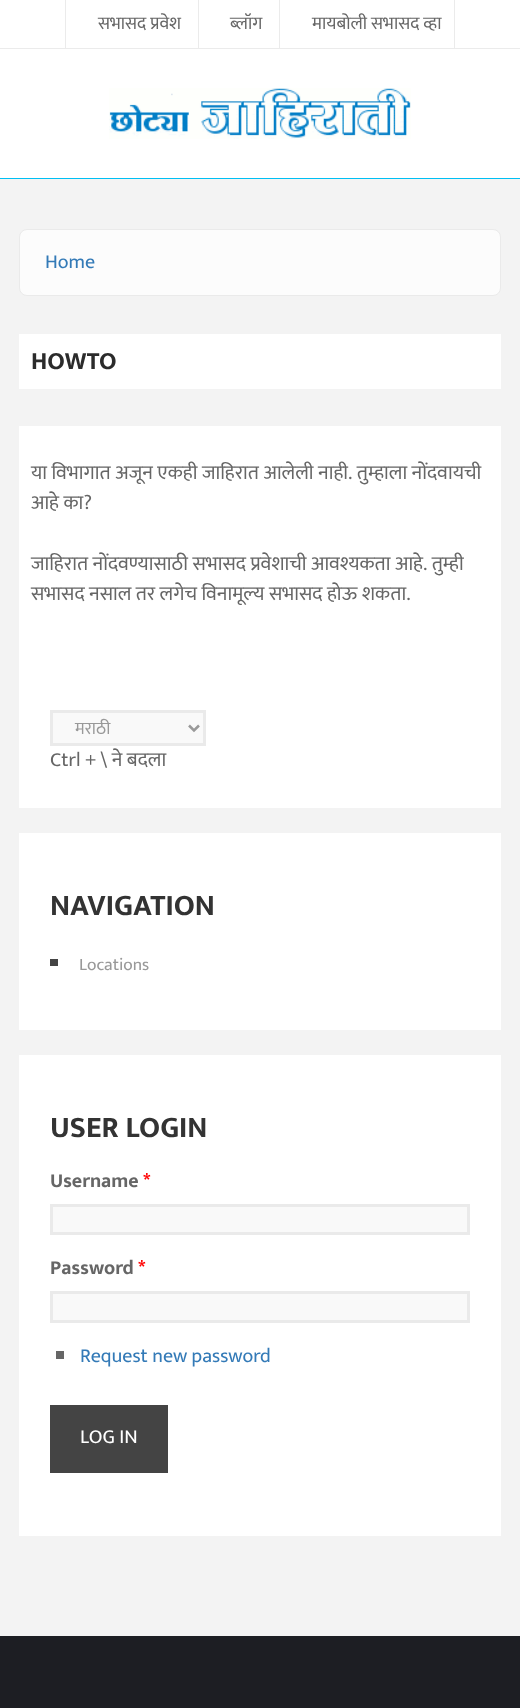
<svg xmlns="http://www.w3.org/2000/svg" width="520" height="1708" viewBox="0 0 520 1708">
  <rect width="100%" height="100%" fill="rgb(255,255,255)"/>
  <rect x="0" y="48" width="520" height="1" fill="rgb(235,235,235)"/>
  <rect x="65" y="0" width="1" height="48" fill="rgb(235,235,235)"/>
  <text x="98" y="29" font-family="Ek Mukta" font-size="18" fill="rgb(102,102,102)">सभासद प्रवेश</text>
  <rect x="198" y="0" width="1" height="48" fill="rgb(235,235,235)"/>
  <text x="230" y="29" font-family="Ek Mukta" font-size="18" fill="rgb(102,102,102)">ब्लॉग</text>
  <rect x="454" y="0" width="1" height="48" fill="rgb(235,235,235)"/>
  <rect x="279" y="0" width="1" height="48" fill="rgb(235,235,235)"/>
  <text x="312" y="29" font-family="Ek Mukta" font-size="18" fill="rgb(102,102,102)">मायबोली सभासद व्हा</text>
  <image x="109" y="88" width="302" height="51" href="pic1.png"/>
  <rect x="0" y="178" width="520" height="1" fill="rgb(0,191,243)"/>
  <rect x="0" y="179" width="520" height="1457" fill="rgb(243,243,243)"/>
  <rect x="19.5" y="229.5" width="481" height="66" rx="7.5" fill="rgb(252,252,252)" stroke="rgb(234,234,234)"/>
  <text x="45" y="268" font-family="Ek Mukta" font-size="20" fill="rgb(51,122,183)">Home</text>
  <rect x="19" y="334" width="482" height="55" fill="rgb(255,255,255)"/>
  <text x="31" y="369" font-family="Ek Mukta" font-size="25" font-weight="bold" fill="rgb(43,43,43)">HOWTO</text>
  <rect x="19" y="426" width="482" height="382" fill="rgb(255,255,255)"/>
  <g font-family="Ek Mukta" font-size="20" fill="rgb(102,102,102)">
    <text>
      <tspan x="31" y="479">या विभागात अजून एकही जाहिरात आलेली नाही. तुम्हाला नोंदवायची</tspan>
      <tspan x="31" y="509">आहे का?</tspan>
    </text>
    <text>
      <tspan x="31" y="570">जाहिरात नोंदवण्यासाठी सभासद प्रवेशाची आवश्यकता आहे. तुम्ही</tspan>
      <tspan x="31" y="600">सभासद नसाल तर लगेच विनामूल्य सभासद होऊ शकता.</tspan>
    </text>
  </g>
  <rect x="51.5" y="711.5" width="153" height="33" fill="rgb(249,249,249)" stroke="rgb(234,234,234)" stroke-width="3"/>
  <path d="M189 725.5L194 730.5L199 725.5" fill="none" stroke="rgb(153,153,153)" stroke-width="2.5"/>
  <text x="75" y="734" font-family="Ek Mukta" font-size="17.5" fill="rgb(153,153,153)">मराठी</text>
  <text x="50" y="766" font-family="Ek Mukta" font-size="20" fill="rgb(102,102,102)">Ctrl + \ ने बदला</text>
  <rect x="19" y="833" width="482" height="197" fill="rgb(255,255,255)"/>
  <text x="50" y="915" font-family="Ek Mukta" font-size="30" font-weight="bold" fill="rgb(51,51,51)">NAVIGATION</text>
  <rect x="50" y="959" width="8" height="7" fill="rgb(68,68,68)"/>
  <text x="79" y="970" font-family="Ek Mukta" font-size="17.5" fill="rgb(153,153,153)">Locations</text>
  <rect x="19" y="1055" width="482" height="481" fill="rgb(255,255,255)"/>
  <text x="50" y="1137" font-family="Ek Mukta" font-size="30" font-weight="bold" fill="rgb(51,51,51)">USER LOGIN</text>
  <text x="50" y="1187" font-family="Ek Mukta" font-size="20" font-weight="bold" fill="rgb(102,102,102)">Username</text>
  <text x="143" y="1187" font-family="Ek Mukta" font-size="20" font-weight="bold" fill="rgb(255,0,0)">*</text>
  <rect x="51.5" y="1205.5" width="417" height="28" fill="rgb(249,249,249)" stroke="rgb(234,234,234)" stroke-width="3"/>
  <text x="50" y="1274" font-family="Ek Mukta" font-size="20" font-weight="bold" fill="rgb(102,102,102)">Password</text>
  <text x="138" y="1274" font-family="Ek Mukta" font-size="20" font-weight="bold" fill="rgb(255,0,0)">*</text>
  <rect x="51.5" y="1292.5" width="417" height="29" fill="rgb(249,249,249)" stroke="rgb(234,234,234)" stroke-width="3"/>
  <rect x="56" y="1351" width="8" height="8" fill="rgb(102,102,102)"/>
  <text x="80" y="1362" font-family="Ek Mukta" font-size="20" fill="rgb(51,122,183)">Request new password</text>
  <rect x="50" y="1405" width="118" height="68" fill="rgb(68,68,68)"/>
  <text x="80" y="1443" font-family="Ek Mukta" font-size="20" fill="rgb(255,255,255)">LOG IN</text>
  <rect x="0" y="1636" width="520" height="72" fill="rgb(29,30,35)"/>
</svg>
